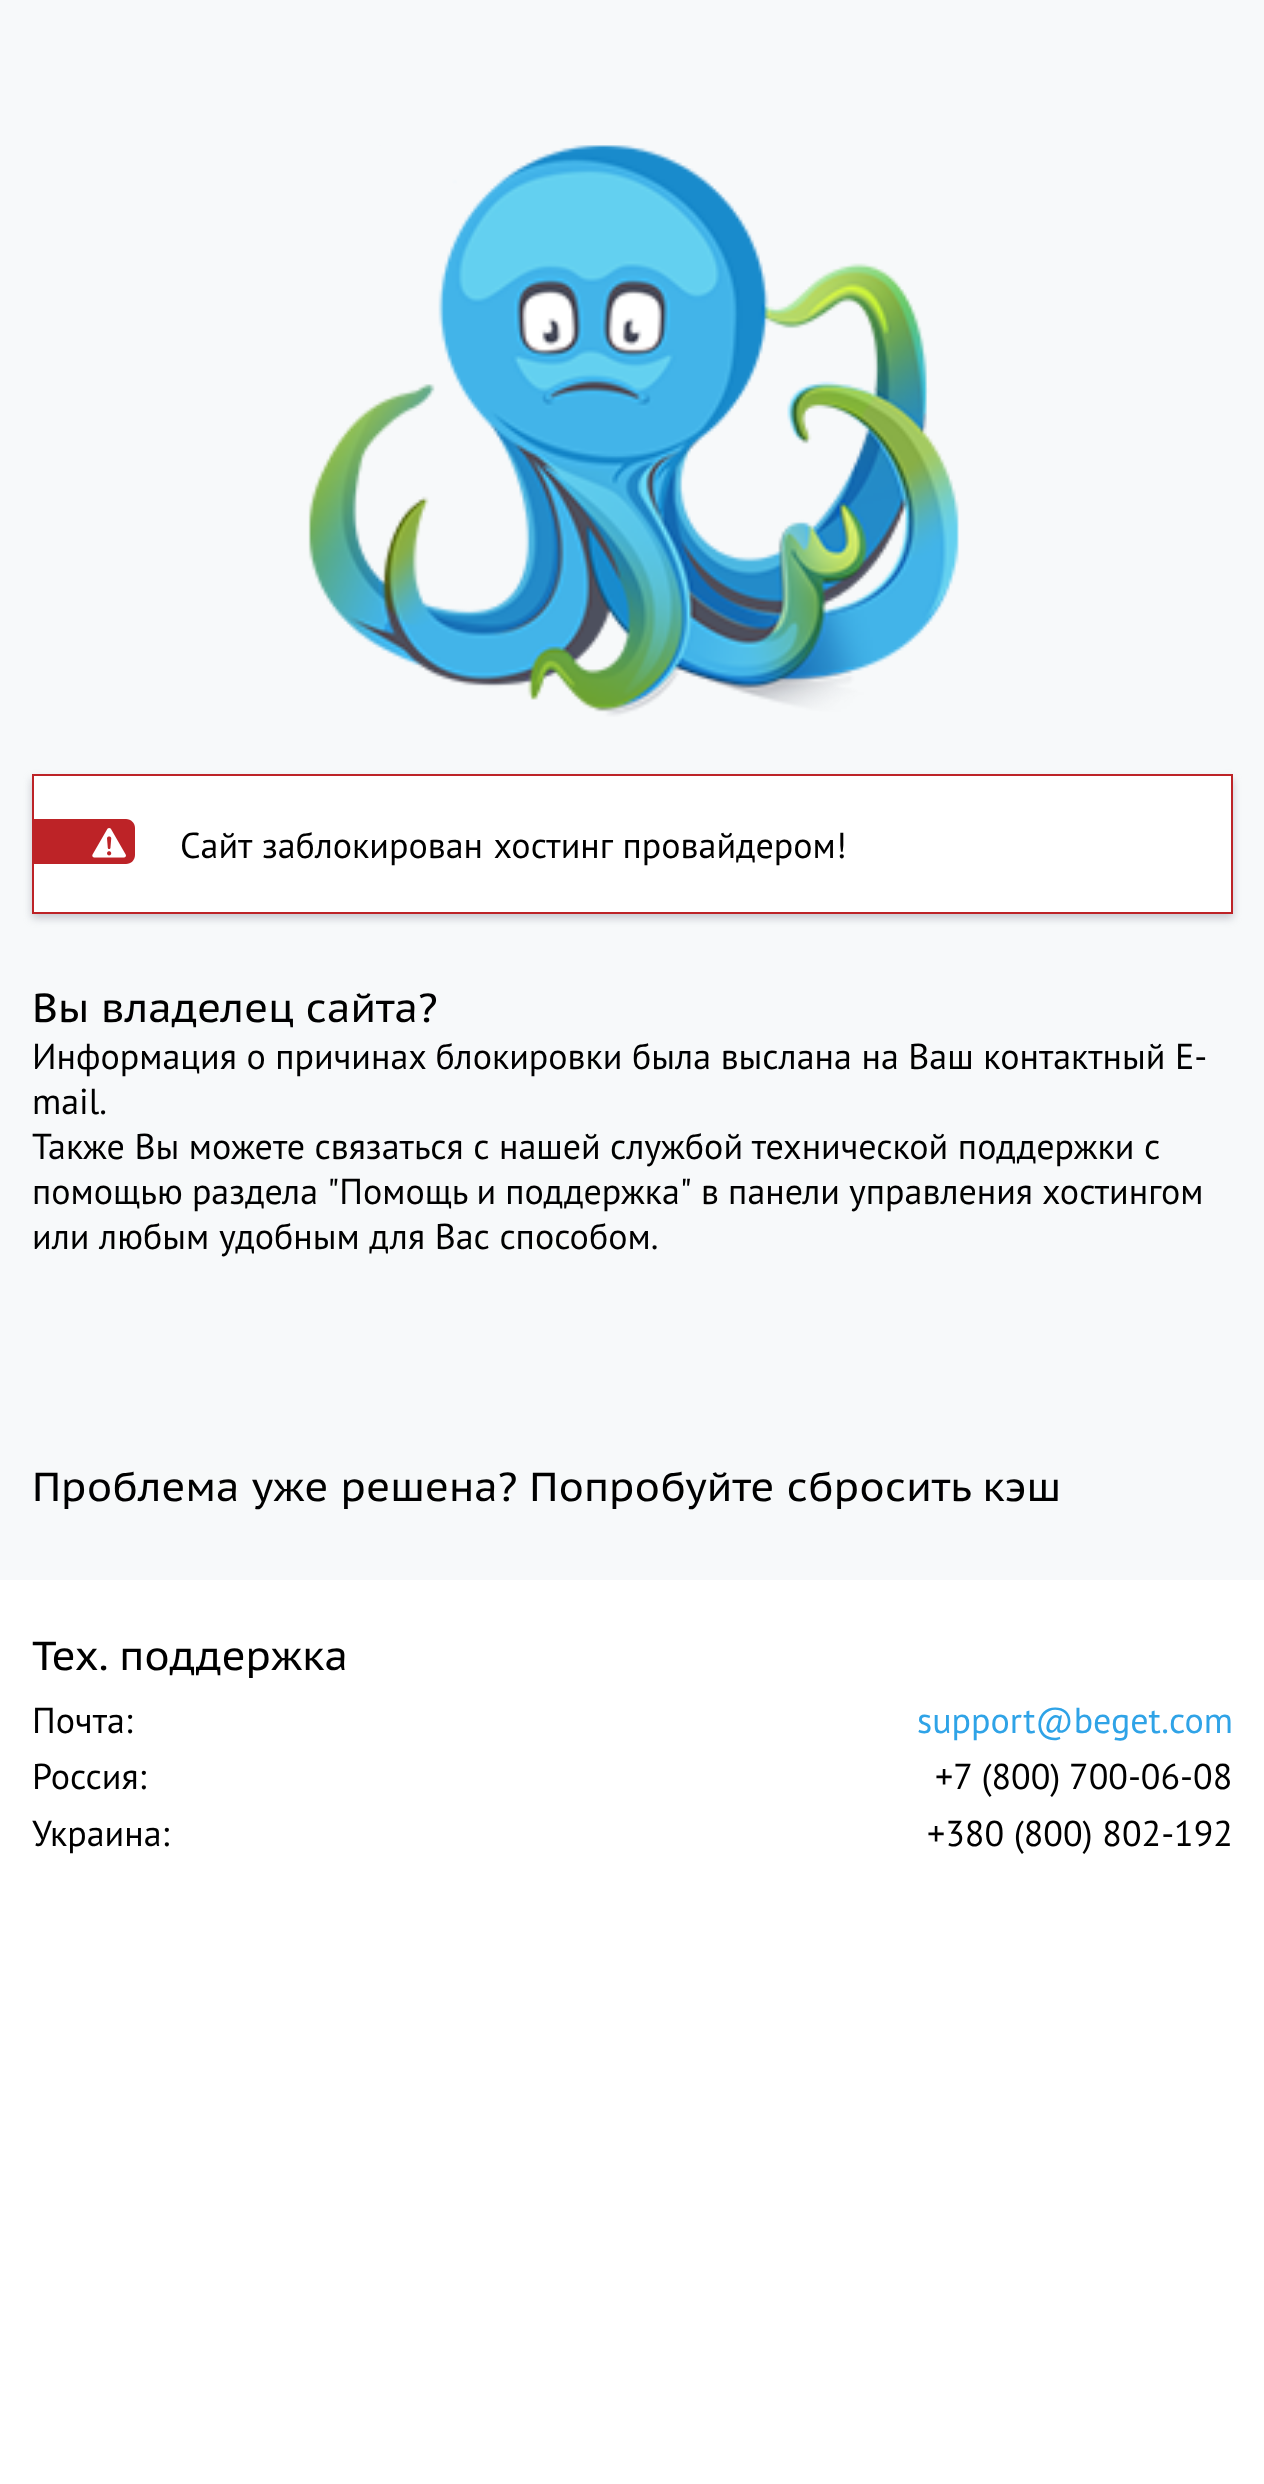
<svg xmlns="http://www.w3.org/2000/svg" width="1264" height="2484" viewBox="0 0 1264 2484">
  <rect width="100%" height="100%" fill="rgb(255,255,255)"/>
  <rect x="0" y="0" width="1264" height="1580" fill="rgb(247,249,250)"/>
  <image x="308" y="145" width="651" height="572" href="pic1.png"/>
  <rect x="32" y="779" width="1201" height="139" fill="rgba(146,149,163,0.5)" filter="blur(4.5px)"/>
  <rect x="33" y="775" width="1199" height="138" fill="rgb(255,255,255)" stroke="rgb(189,35,39)" stroke-width="2"/>
  <path d="M34 819H126C131 819 135 823 135 828V855C135 860 131 864 126 864H34Z" fill="rgb(189,35,39)"/>
  <image x="92" y="828" width="34" height="30" href="pic2.png"/>
  <text x="180" y="858" word-spacing="1" font-family="PT Sans" font-size="36" fill="rgb(0,0,0)">Сайт заблокирован хостинг провайдером!</text>
  <text x="32" y="1022" font-family="PT Sans Caption" font-size="40.5" fill="rgb(0,0,0)">Вы владелец сайта?</text>
  <g font-family="PT Sans" font-size="36" fill="rgb(0,0,0)">
    <text>
      <tspan x="32" y="1069">Информация о причинах блокировки была выслана на Ваш контактный E-</tspan>
      <tspan x="32" y="1114">mail.</tspan>
      <tspan x="32" y="1159">Также Вы можете связаться с нашей</tspan>
    </text>
    <text x="610" y="1159">службой технической поддержки с</text>
    <text>
      <tspan x="32" y="1204" word-spacing="-0.5">помощью раздела "Помощь и поддержка" в панели управления хостингом</tspan>
      <tspan x="32" y="1249">или любым удобным для Вас способом.</tspan>
    </text>
  </g>
  <g font-family="PT Sans Caption" font-size="40.5" fill="rgb(0,0,0)">
    <text x="32" y="1501" word-spacing="0.25">Проблема уже решена? Попробуйте сбросить кэш</text>
    <text x="32" y="1670" word-spacing="-1">Тех. поддержка</text>
  </g>
  <text x="32" y="1733" font-family="PT Sans" font-size="36" fill="rgb(0,0,0)">Почта:</text>
  <text x="917" y="1733" font-family="PT Sans" font-size="36" fill="rgb(47,163,231)">support@beget.com</text>
  <g font-family="PT Sans" font-size="36" fill="rgb(0,0,0)">
    <text x="32" y="1789">Россия:</text>
    <text x="935" y="1789" word-spacing="-1">+7 (800) 700-06-08</text>
    <text x="32" y="1846">Украина:</text>
    <text x="927" y="1846">+380 (800) 802-192</text>
  </g>
</svg>
